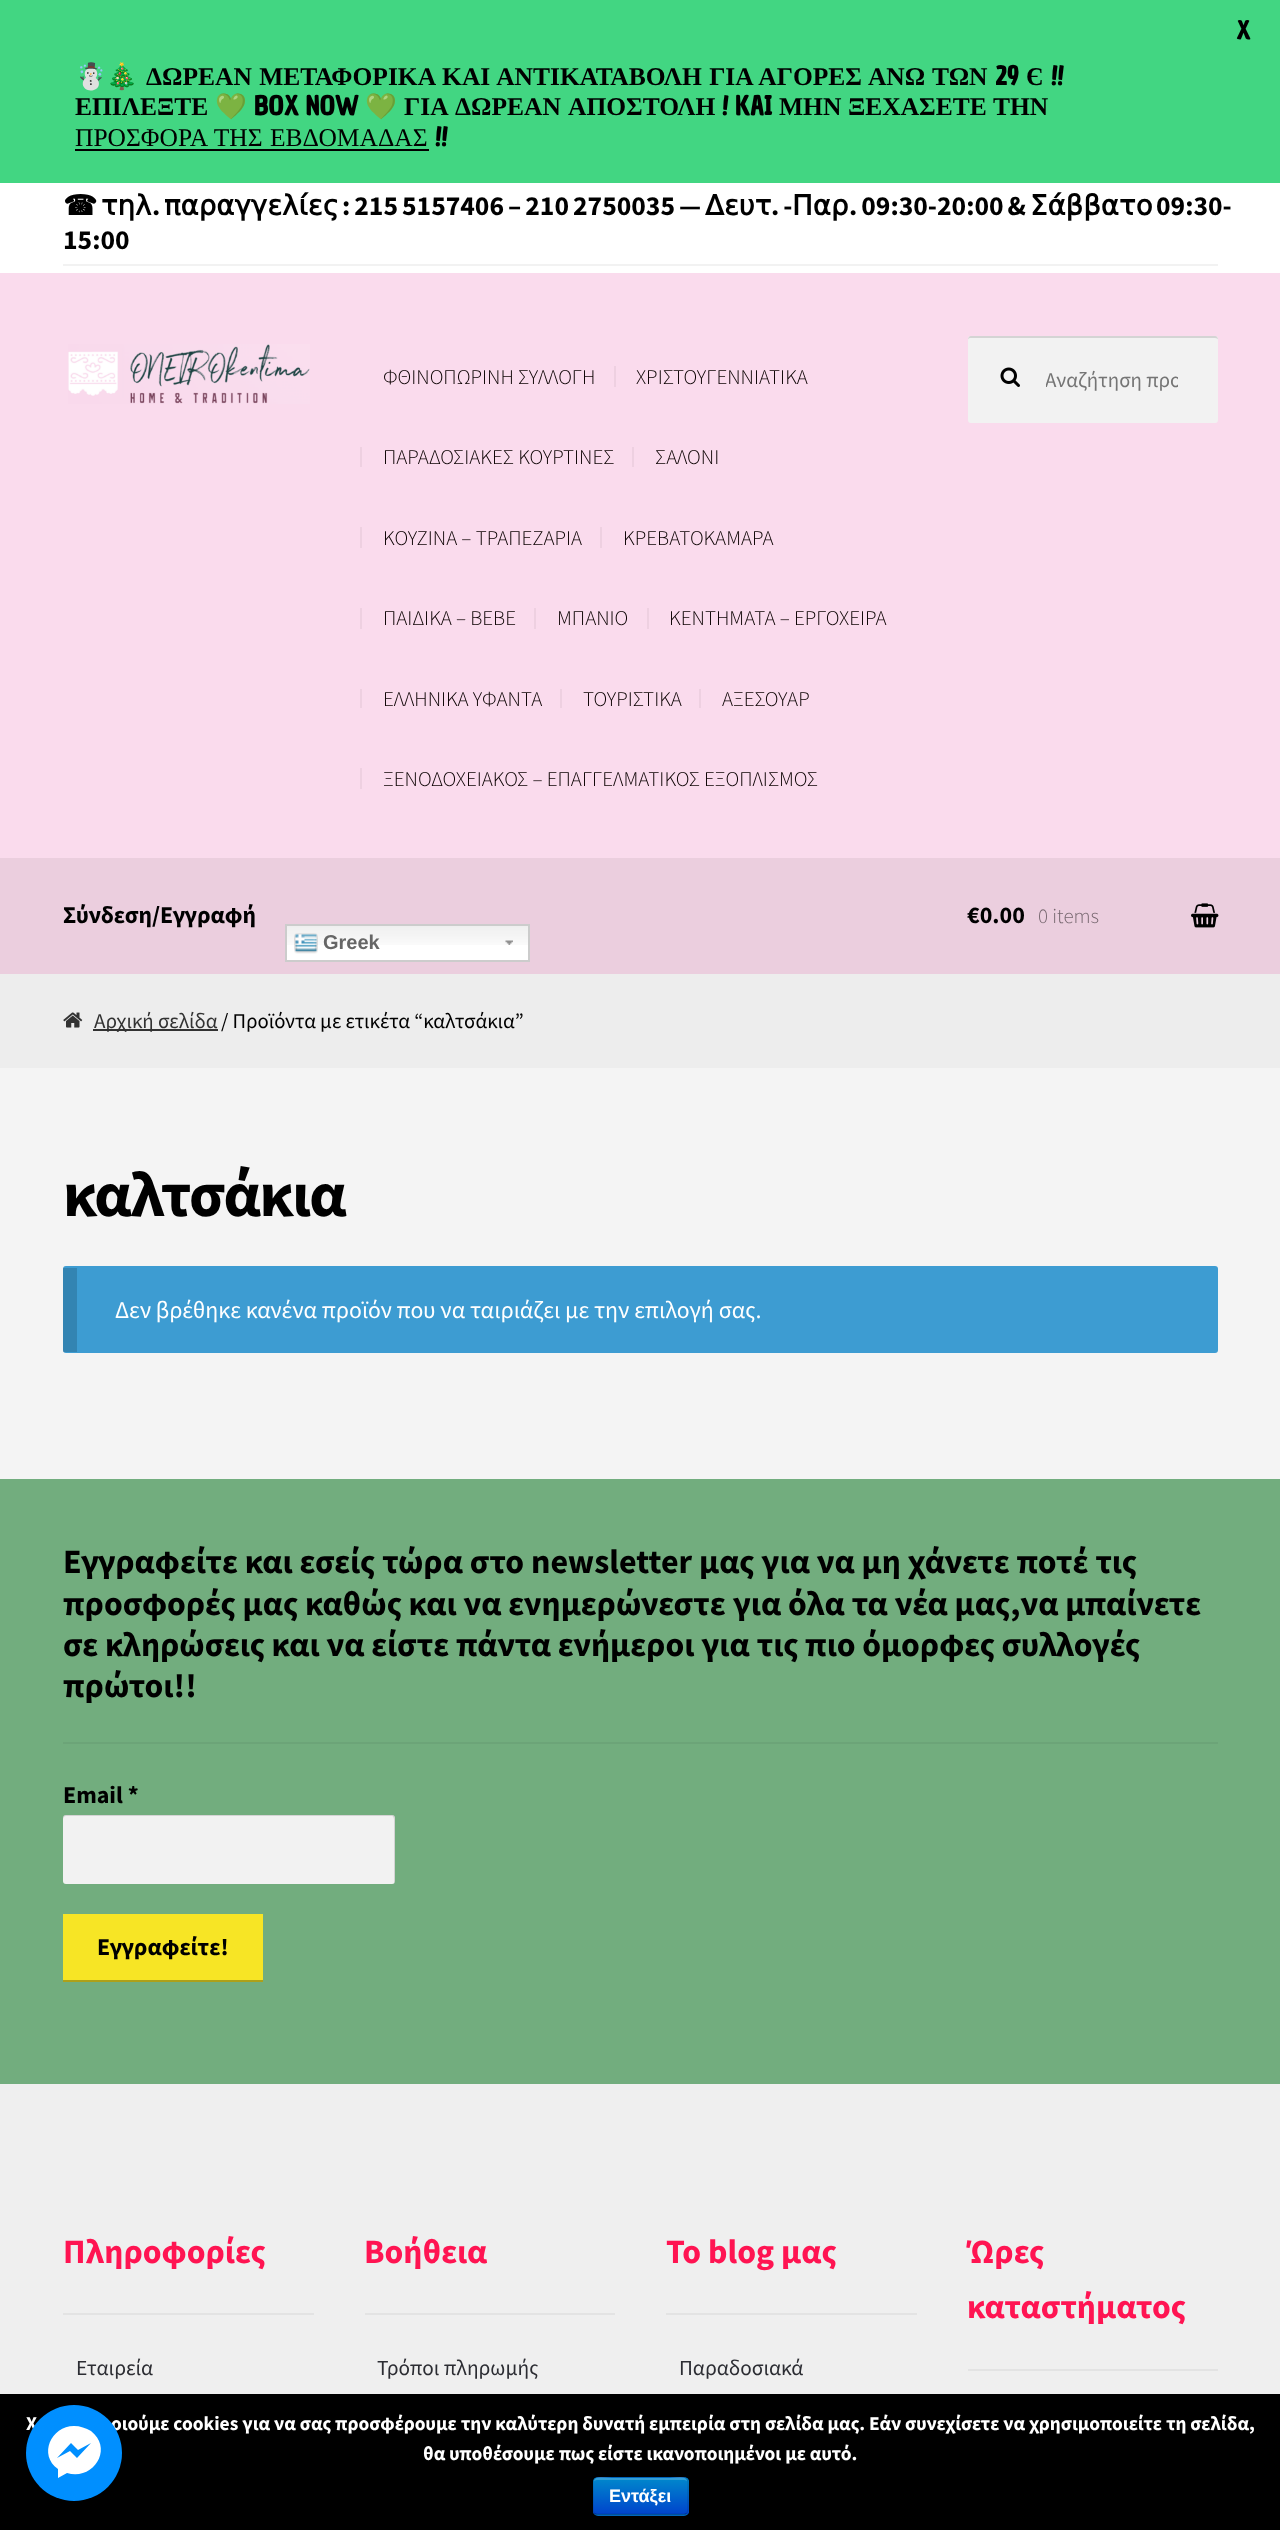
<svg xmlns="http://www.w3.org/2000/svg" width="1280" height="2530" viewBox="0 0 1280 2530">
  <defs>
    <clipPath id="clip1"><rect x="1046" y="366" width="132" height="27"/></clipPath>
    <clipPath id="clip2"><rect x="593" y="2477" width="96" height="39" rx="5"/></clipPath>
    <linearGradient id="g1" gradientUnits="userSpaceOnUse" x1="641" y1="2478" x2="641" y2="2514"><stop offset="0" stop-color="rgb(0,136,204)"/><stop offset="1" stop-color="rgb(0,68,204)"/></linearGradient>
  </defs>
  <rect width="100%" height="100%" fill="rgb(244,244,244)"/>
  <rect x="0" y="0" width="1280" height="183" fill="rgb(66,214,130)"/>
  <text x="1236" y="39" font-family="Chau Philomene One" font-size="24" font-weight="bold" fill="rgb(0,0,0)">X</text>
  <text x="75" y="85" font-family="Noto Color Emoji" font-size="25.5" font-weight="bold" fill="rgb(0,0,0)">☃️🎄</text>
  <text x="146" y="85" word-spacing="1" font-family="Liberation Serif" font-size="25.5" font-weight="bold" fill="rgb(0,0,0)">ΔΩΡΕΑΝ ΜΕΤΑΦΟΡΙΚΑ ΚΑΙ ΑΝΤΙΚΑΤΑΒΟΛΗ ΓΙΑ ΑΓΟΡΕΣ ΑΝΩ ΤΩΝ</text>
  <text x="995" y="85" font-family="Chau Philomene One" font-size="25.5" font-weight="bold" fill="rgb(0,0,0)">29</text>
  <text x="1026" y="85" font-family="Liberation Serif" font-size="25.5" font-weight="bold" fill="rgb(0,0,0)">Є</text>
  <text x="1051" y="85" font-family="Chau Philomene One" font-size="25.5" font-weight="bold" fill="rgb(0,0,0)">!!</text>
  <text x="75" y="115" font-family="Liberation Serif" font-size="25.5" font-weight="bold" fill="rgb(0,0,0)">ΕΠΙΛΕΞΤΕ</text>
  <text x="215" y="115" font-family="Noto Color Emoji" font-size="25.5" font-weight="bold" fill="rgb(0,0,0)">💚</text>
  <text x="254" y="115" font-family="Chau Philomene One" font-size="25.5" font-weight="bold" fill="rgb(0,0,0)">BOX NOW</text>
  <text x="365" y="115" font-family="Noto Color Emoji" font-size="25.5" font-weight="bold" fill="rgb(0,0,0)">💚</text>
  <g font-family="Liberation Serif" font-size="25.5" font-weight="bold" fill="rgb(0,0,0)">
    <text x="404" y="115">ΓΙΑ</text>
    <text x="455" y="115">ΔΩΡΕΑΝ</text>
    <text x="568" y="115">ΑΠΟΣΤΟΛΗ</text>
  </g>
  <text x="722" y="115" font-family="Chau Philomene One" font-size="25.5" font-weight="bold" fill="rgb(0,0,0)">! KAI</text>
  <g font-family="Liberation Serif" font-size="25.5" font-weight="bold" fill="rgb(0,0,0)">
    <text x="779" y="115">ΜΗΝ</text>
    <text x="848" y="115">ΞΕΧΑΣΕΤΕ</text>
    <text x="993" y="115">ΤΗΝ</text>
  </g>
  <text x="75" y="146" word-spacing="1" font-family="Liberation Serif" font-size="25.5" fill="rgb(0,0,0)">ΠΡΟΣΦΟΡΑ ΤΗΣ ΕΒΔΟΜΑΔΑΣ</text>
  <rect x="75" y="149" width="354" height="2" fill="rgb(0,0,0)"/>
  <text x="435" y="146" font-family="Chau Philomene One" font-size="25.5" font-weight="bold" fill="rgb(0,0,0)">!!</text>
  <rect x="0" y="183" width="1280" height="90" fill="rgb(255,255,255)"/>
  <rect x="63" y="264" width="1155" height="2" fill="rgb(242,242,242)"/>
  <g font-family="DejaVu Sans" font-size="27.6" font-weight="bold" fill="rgb(0,0,0)">
    <text x="63" y="215">☎</text>
    <text x="101" y="215">τηλ</text>
  </g>
  <text x="152" y="215" font-family="Source Sans Pro" font-size="27.6" font-weight="bold" fill="rgb(0,0,0)">.</text>
  <text x="164" y="215" font-family="DejaVu Sans" font-size="27.6" font-weight="bold" fill="rgb(0,0,0)">παραγγελίες</text>
  <text x="342" y="215" word-spacing="-1.5" font-family="Source Sans Pro" font-size="27.6" font-weight="bold" fill="rgb(0,0,0)">: 215 5157406 – 210 2750035 —</text>
  <text x="705" y="215" font-family="DejaVu Sans" font-size="27.6" font-weight="bold" fill="rgb(0,0,0)">Δευτ</text>
  <text x="771" y="215" word-spacing="-1.5" font-family="Source Sans Pro" font-size="27.6" font-weight="bold" fill="rgb(0,0,0)">. -</text>
  <text x="792" y="215" font-family="DejaVu Sans" font-size="27.6" font-weight="bold" fill="rgb(0,0,0)">Παρ</text>
  <text x="849" y="215" word-spacing="-1.5" font-family="Source Sans Pro" font-size="27.6" font-weight="bold" fill="rgb(0,0,0)">. 09:30-20:00 &amp;</text>
  <text x="1030" y="215" font-family="DejaVu Sans" font-size="27.6" font-weight="bold" fill="rgb(0,0,0)">Σάββατο</text>
  <g font-family="Source Sans Pro" font-size="27.6" font-weight="bold" fill="rgb(0,0,0)">
    <text x="1156" y="215">09:30-</text>
    <text x="63" y="249">15:00</text>
  </g>
  <rect x="0" y="273" width="1280" height="585" fill="rgb(250,219,237)"/>
  <image x="68" y="344" width="242" height="60" href="pic1.png"/>
  <text x="383" y="384" font-family="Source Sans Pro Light" font-size="21" font-weight="300" fill="rgb(10,1,0)">ΦΘΙΝΟΠΩΡΙΝΗ ΣΥΛΛΟΓΗ</text>
  <rect x="614" y="366" width="2" height="21" fill="rgb(238,208,225)"/>
  <text x="636" y="384" font-family="Source Sans Pro Light" font-size="21" font-weight="300" fill="rgb(10,1,0)">ΧΡΙΣΤΟΥΓΕΝΝΙΑΤΙΚΑ</text>
  <rect x="360" y="447" width="2" height="20" fill="rgb(238,208,225)"/>
  <text x="383" y="464" font-family="Source Sans Pro Light" font-size="21" font-weight="300" fill="rgb(10,1,0)">ΠΑΡΑΔΟΣΙΑΚΕΣ ΚΟΥΡΤΙΝΕΣ</text>
  <rect x="632" y="447" width="2" height="20" fill="rgb(238,208,225)"/>
  <text x="655" y="464" font-family="Source Sans Pro Light" font-size="21" font-weight="300" fill="rgb(10,1,0)">ΣΑΛΟΝΙ</text>
  <rect x="360" y="527" width="2" height="21" fill="rgb(238,208,225)"/>
  <text x="383" y="545" font-family="Source Sans Pro Light" font-size="21" font-weight="300" fill="rgb(10,1,0)">ΚΟΥΖΙΝΑ – ΤΡΑΠΕΖΑΡΙΑ</text>
  <rect x="600" y="527" width="2" height="21" fill="rgb(238,208,225)"/>
  <text x="623" y="545" font-family="Source Sans Pro Light" font-size="21" font-weight="300" fill="rgb(10,1,0)">ΚΡΕΒΑΤΟΚΑΜΑΡΑ</text>
  <rect x="360" y="608" width="2" height="21" fill="rgb(238,208,225)"/>
  <text x="383" y="625" font-family="Source Sans Pro Light" font-size="21" font-weight="300" fill="rgb(10,1,0)">ΠΑΙΔΙΚΑ – BEBE</text>
  <rect x="534" y="608" width="2" height="21" fill="rgb(238,208,225)"/>
  <text x="557" y="625" font-family="Source Sans Pro Light" font-size="21" font-weight="300" fill="rgb(10,1,0)">ΜΠΑΝΙΟ</text>
  <rect x="647" y="608" width="2" height="21" fill="rgb(238,208,225)"/>
  <text x="669" y="625" font-family="Source Sans Pro Light" font-size="21" font-weight="300" fill="rgb(10,1,0)">ΚΕΝΤΗΜΑΤΑ – ΕΡΓΟΧΕΙΡΑ</text>
  <rect x="360" y="689" width="2" height="19" fill="rgb(238,208,225)"/>
  <text x="383" y="706" font-family="Source Sans Pro Light" font-size="21" font-weight="300" fill="rgb(10,1,0)">ΕΛΛΗΝΙΚΑ ΥΦΑΝΤΑ</text>
  <rect x="560" y="689" width="2" height="19" fill="rgb(238,208,225)"/>
  <text x="583" y="706" font-family="Source Sans Pro Light" font-size="21" font-weight="300" fill="rgb(10,1,0)">ΤΟΥΡΙΣΤΙΚΑ</text>
  <rect x="699" y="689" width="2" height="19" fill="rgb(238,208,225)"/>
  <text x="722" y="706" font-family="Source Sans Pro Light" font-size="21" font-weight="300" fill="rgb(10,1,0)">ΑΞΕΣΟΥΑΡ</text>
  <rect x="360" y="768" width="2" height="21" fill="rgb(238,208,225)"/>
  <text x="383" y="786" font-family="Source Sans Pro Light" font-size="21" font-weight="300" fill="rgb(10,1,0)">ΞΕΝΟΔΟΧΕΙΑΚΟΣ – ΕΠΑΓΓΕΛΜΑΤΙΚΟΣ ΕΞΟΠΛΙΣΜΟΣ</text>
  <rect x="968" y="336" width="250" height="87" rx="3" fill="rgb(242,242,242)"/>
  <image x="1000" y="367" width="20" height="20" href="pic2.png"/>
  <path d="M970 338H1215C1217 338 1218 339 1218 340C1218 338 1217 336 1215 336H971C969 336 968 338 968 340C968 339 969 338 970 338Z" fill="rgb(212,212,212)"/>
  <g clip-path="url(#clip1)">
    <text x="1045" y="387" font-family="Source Sans Pro" font-size="21" fill="rgb(117,117,117)">Αναζήτηση προ</text>
  </g>
  <rect x="0" y="858" width="1280" height="116" fill="rgb(235,206,222)"/>
  <text x="63" y="923" font-family="Source Sans Pro" font-size="24" font-weight="bold" fill="rgb(0,0,0)">Σύνδεση/Εγγραφή</text>
  <rect x="287" y="945" width="241" height="15" fill="rgb(255,255,255)"/>
  <image x="287" y="926" width="241" height="19" href="pic3.png"/>
  <image x="505" y="940" width="8" height="5" href="pic4.png"/>
  <rect x="286" y="925" width="243" height="36" fill="none" stroke="rgb(204,204,204)" stroke-width="2"/>
  <image x="294" y="933" width="24" height="21" href="pic5.png"/>
  <text x="323" y="949" font-family="Liberation Sans" font-size="20" font-weight="bold" fill="rgb(102,102,102)">Greek</text>
  <text x="967" y="923" font-family="Source Sans Pro" font-size="24" font-weight="bold" fill="rgb(0,0,0)">€0.00</text>
  <text x="1038" y="923" font-family="Source Sans Pro Light" font-size="21" font-weight="300" fill="rgb(118,103,111)">0 items</text>
  <image x="1191" y="903" width="28" height="25" href="pic6.png"/>
  <rect x="0" y="974" width="1280" height="94" fill="rgb(237,237,237)"/>
  <image x="63" y="1012" width="20" height="16" href="pic7.png"/>
  <rect x="93" y="1029" width="125" height="2" fill="rgb(50,50,50)"/>
  <text x="94" y="1028" font-family="Source Sans Pro" font-size="21" fill="rgb(50,50,50)">Αρχική σελίδα</text>
  <text x="221" y="1028" font-family="Source Sans Pro" font-size="21" fill="rgb(0,0,0)">/ Προϊόντα με ετικέτα “καλτσάκια”</text>
  <text x="63" y="1216" font-family="Source Sans Pro" font-size="63" font-weight="bold" letter-spacing="-1.5" fill="rgb(0,0,0)">καλτσάκια</text>
  <rect x="63" y="1266" width="1155" height="87" rx="3" fill="rgb(61,156,210)"/>
  <rect x="63" y="1268" width="14" height="84" fill="rgba(0,0,0,0.15)"/>
  <text x="115" y="1318" font-family="Source Sans Pro" font-size="24" fill="rgb(255,255,255)">Δεν βρέθηκε κανένα προϊόν που να ταιριάζει με την επιλογή σας.</text>
  <rect x="0" y="1479" width="1280" height="605" fill="rgb(114,173,126)"/>
  <rect x="63" y="1742" width="1155" height="2" fill="rgb(108,164,120)"/>
  <g font-family="Source Sans Pro" font-size="34" font-weight="bold" fill="rgb(0,0,0)">
    <text>
      <tspan x="63" y="1573">Εγγραφείτε και εσείς τώρα στο newsletter μας για να μη χάνετε ποτέ τις</tspan>
      <tspan x="63" y="1615">προσφορές μας καθώς και να ενημερώνεστε για όλα τα νέα μας,να μπαίνετε</tspan>
      <tspan x="63" y="1656">σε κληρώσεις και να είστε πάντα ενήμεροι για τις πιο όμορφες συλλογές</tspan>
      <tspan x="63" y="1697">πρώτοι!!</tspan>
    </text>
  </g>
  <text x="63" y="1803" font-family="Source Sans Pro" font-size="24" font-weight="bold" fill="rgb(0,0,0)">Email *</text>
  <rect x="63" y="1815" width="332" height="69" rx="3" fill="rgb(242,242,242)"/>
  <path d="M66 1816H392C393 1816 394 1818 394 1820V1883C395 1883 395 1882 395 1881V1818C395 1816 394 1815 392 1815H66C64 1815 63 1816 63 1818V1820C63 1818 64 1816 66 1816Z" fill="rgba(0,0,0,0.12)"/>
  <rect x="63" y="1914" width="200" height="66" fill="rgb(247,229,37)"/>
  <rect x="63" y="1980" width="200" height="2" fill="rgb(173,160,26)"/>
  <text x="97" y="1955" font-family="Source Sans Pro" font-size="24" font-weight="bold" fill="rgb(0,0,0)">Εγγραφείτε!</text>
  <rect x="0" y="2084" width="1280" height="310" fill="rgb(239,239,239)"/>
  <rect x="63" y="2313" width="251" height="2" fill="rgb(227,227,227)"/>
  <text x="63" y="2263" font-family="Source Sans Pro" font-size="34" font-weight="bold" fill="rgb(255,20,82)">Πληροφορίες</text>
  <text x="76" y="2375" font-family="Source Sans Pro" font-size="21.5" fill="rgb(44,45,51)">Εταιρεία</text>
  <rect x="365" y="2313" width="250" height="2" fill="rgb(227,227,227)"/>
  <text x="364" y="2263" font-family="Source Sans Pro" font-size="34" font-weight="bold" fill="rgb(255,20,82)">Βοήθεια</text>
  <text x="377" y="2375" font-family="Source Sans Pro" font-size="21.5" fill="rgb(44,45,51)">Τρόποι πληρωμής</text>
  <rect x="666" y="2313" width="251" height="2" fill="rgb(227,227,227)"/>
  <text x="666" y="2263" font-family="Source Sans Pro" font-size="34" font-weight="bold" fill="rgb(255,20,82)">Το blog μας</text>
  <text x="679" y="2375" font-family="Source Sans Pro" font-size="21.5" fill="rgb(44,45,51)">Παραδοσιακά</text>
  <rect x="968" y="2369" width="250" height="2" fill="rgb(227,227,227)"/>
  <g font-family="Source Sans Pro" font-size="34" font-weight="bold" fill="rgb(255,20,82)">
    <text>
      <tspan x="967" y="2263">Ώρες</tspan>
      <tspan x="967" y="2318">καταστήματος</tspan>
    </text>
  </g>
  <rect x="0" y="2394" width="1280" height="136" fill="rgb(0,0,0)"/>
  <rect x="26" y="2405" width="96" height="96" rx="48" fill="rgba(0,0,0,0.2)" filter="blur(4px)"/>
  <g font-family="Source Sans Pro" font-size="19.5" font-weight="bold" fill="rgb(255,255,255)">
    <text x="26" y="2430">Χ</text>
    <text x="111" y="2430">οιούμε cookies για να σας προσφέρουμε την καλύτερη δυνατή εμπειρία στη σελίδα μας. Εάν συνεχίσετε να χρησιμοποιείτε τη σελίδα,</text>
  </g>
  <circle cx="74" cy="2453" r="48" fill="rgb(0,143,255)"/>
  <path d="M74 2426C51 2426 38 2455 58 2469V2478L67 2473C93 2481 114 2449 91 2431C86 2428 80 2426 74 2426ZM77 2458L70 2451L57 2458L71 2443L78 2450L91 2443Z" fill="rgb(255,255,255)"/>
  <text x="423" y="2460" font-family="Source Sans Pro" font-size="19.5" font-weight="bold" fill="rgb(255,255,255)">θα υποθέσουμε πως είστε ικανοποιημένοι με αυτό.</text>
  <rect x="593" y="2477" width="96" height="39" rx="5" fill="rgb(0,109,204)"/>
  <g clip-path="url(#clip2)">
    <rect x="593" y="2478" width="96" height="36" fill="url(#g1)"/>
  </g>
  <path d="M597 2480H684C686 2480 687 2481 687 2482C687 2474 673 2478 670 2478H612C608 2478 594 2474 594 2482C594 2481 595 2480 597 2480Z" fill="rgba(255,255,255,0.2)"/>
  <path d="M686.5 2513.5L684.5 2514.5H596.5L594.5 2513.5" fill="none" stroke="rgba(0,0,0,0.25)" stroke-width="1.5"/>
  <path d="M594.5 2513.5C592.5 2512 593 2508 593 2506V2496C593 2474.5 589.5 2477 611.5 2477H669.5C691.5 2477 688 2474.5 688 2496V2506C688 2508 688.5 2512 686.5 2513.5" fill="none" stroke="rgba(0,0,0,0.1)" stroke-width="1.5"/>
  <text x="609" y="2502" font-family="Liberation Sans" font-size="18" font-weight="bold" fill="rgb(255,255,255)">Εντάξει</text>
</svg>
